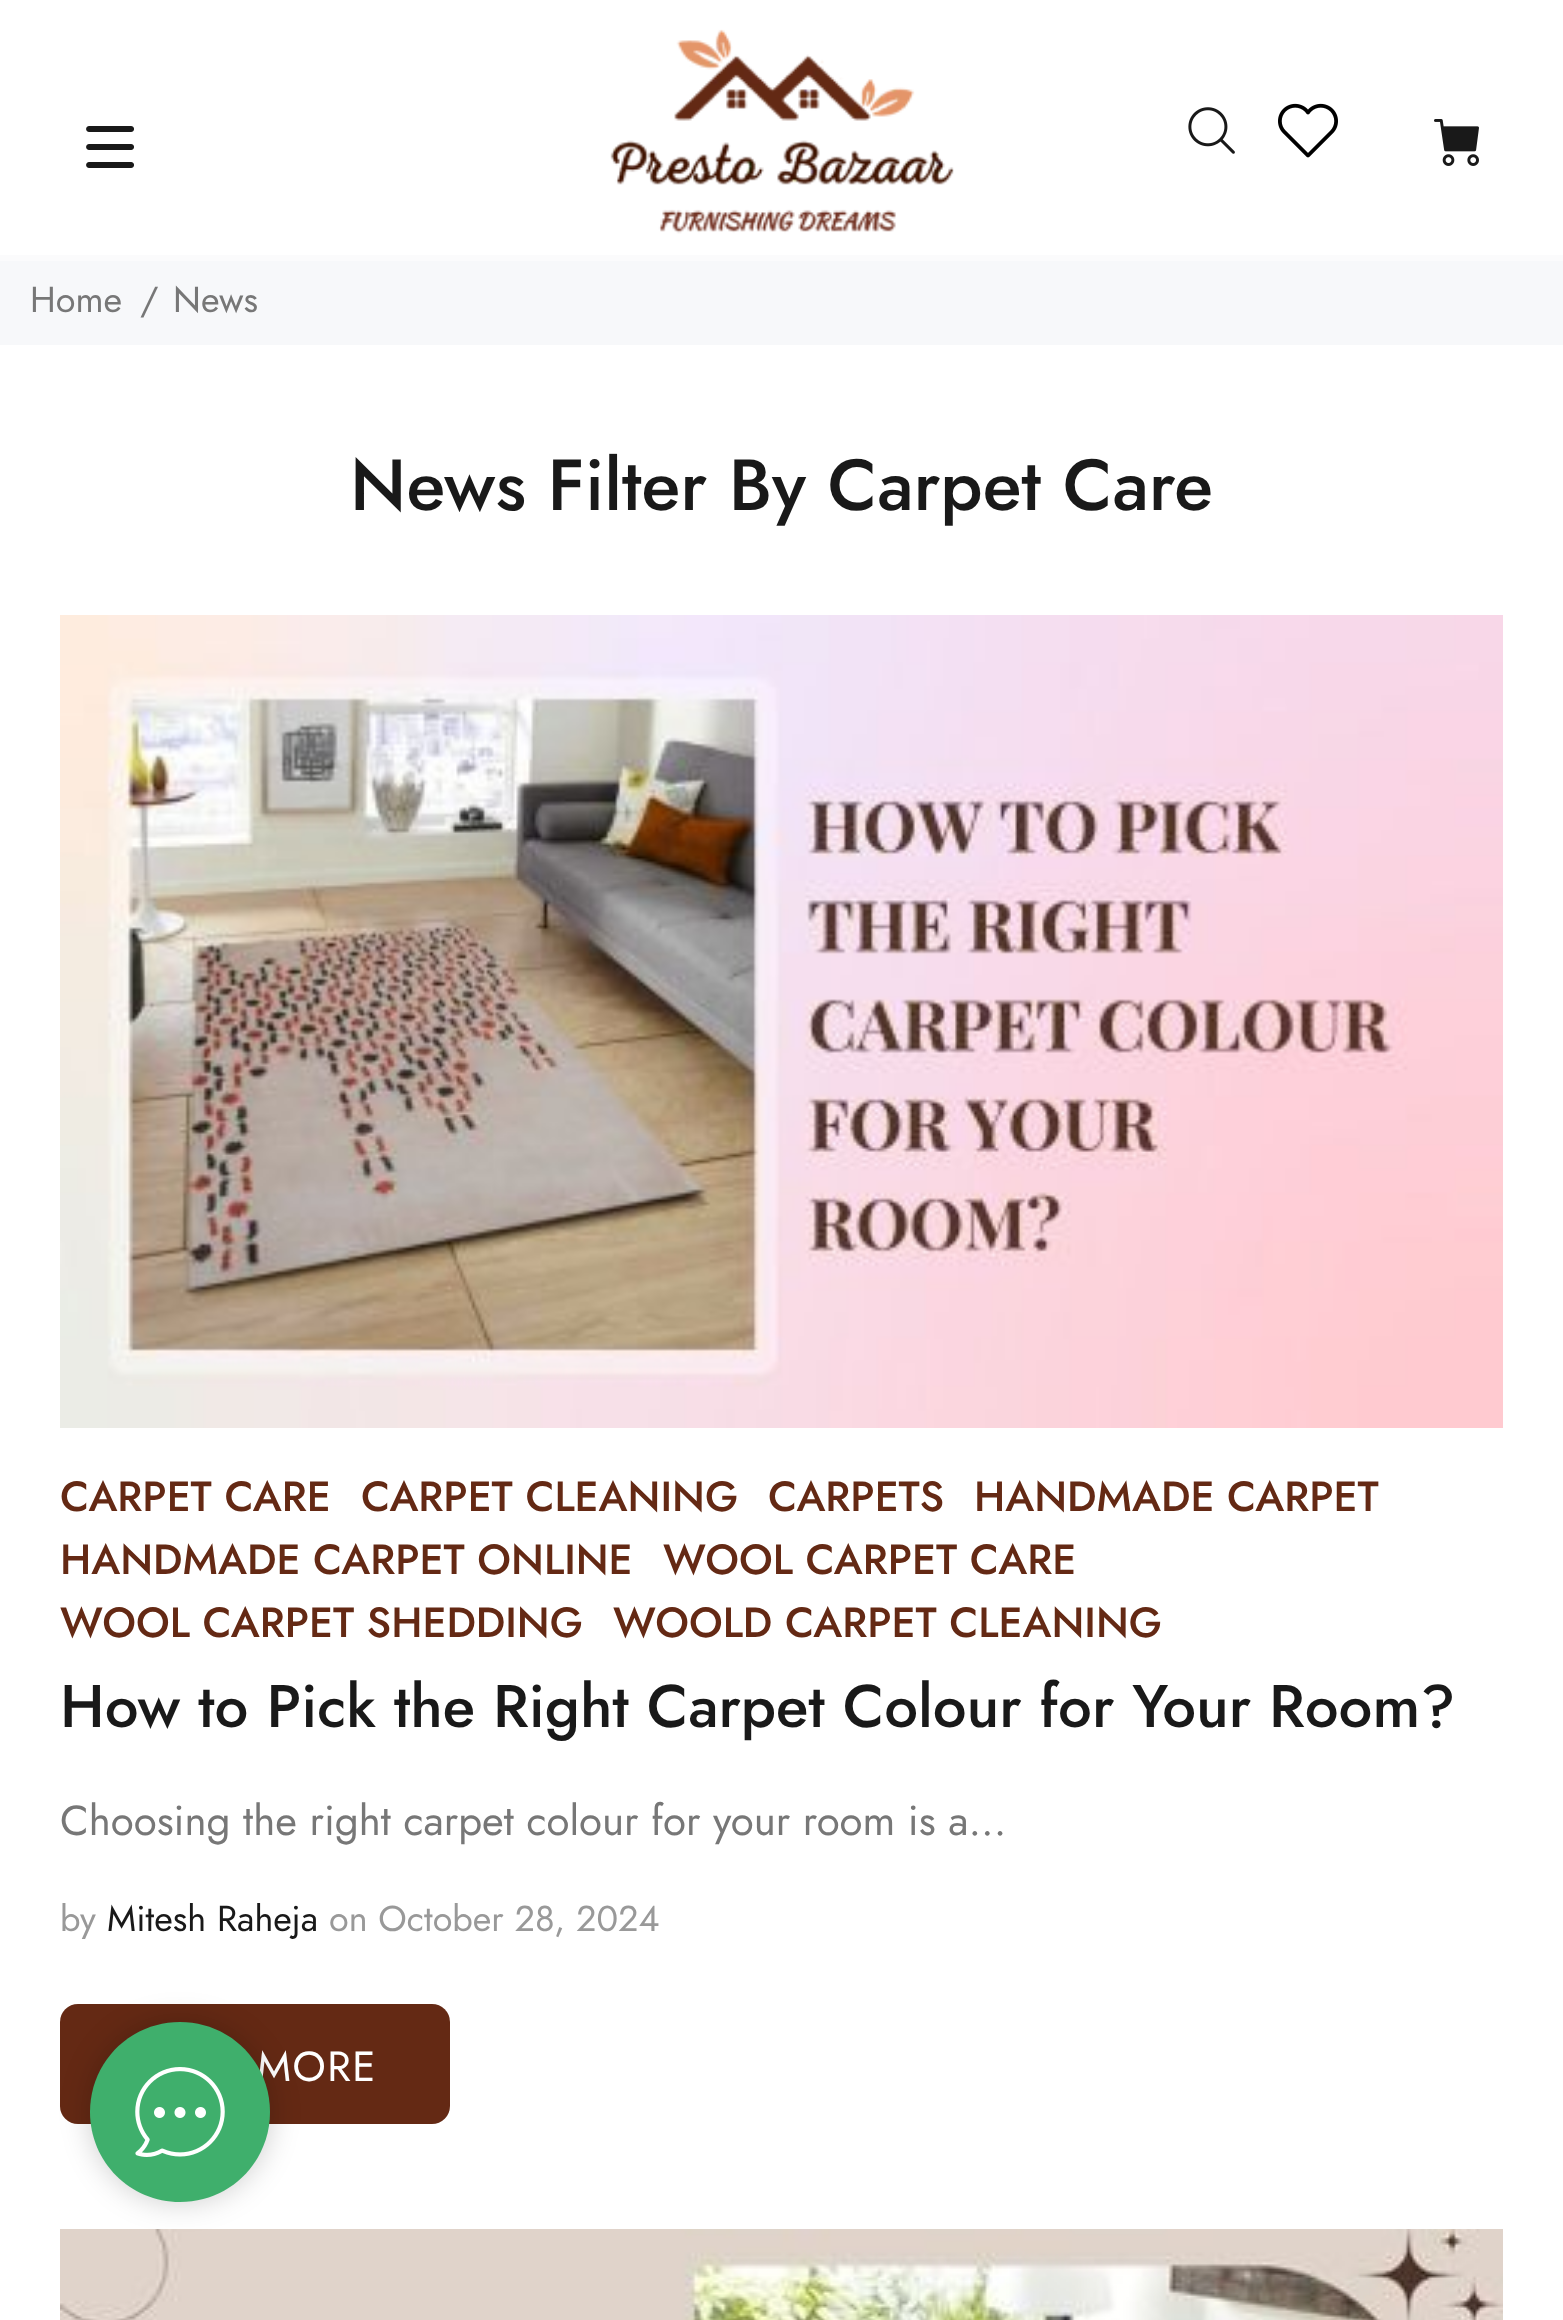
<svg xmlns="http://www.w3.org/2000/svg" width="1563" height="2320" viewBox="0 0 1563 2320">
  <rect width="100%" height="100%" fill="rgb(255,255,255)"/>
  <image x="86" y="126" width="48" height="42" href="pic1.png"/>
  <image x="610" y="29" width="344" height="205" href="pic2.png"/>
  <image x="1188" y="107" width="47" height="47" href="pic3.png"/>
  <image x="1278" y="103" width="60" height="55" href="pic4.png"/>
  <image x="1434" y="119" width="45" height="47" href="pic5.png"/>
  <rect x="0" y="261" width="1563" height="84" fill="rgb(247,248,250)"/>
  <rect x="0" y="255" width="1563" height="6" fill="rgb(251,251,252)"/>
  <g font-family="Jost" font-size="36" fill="rgb(119,119,119)">
    <text x="30" y="312">Home</text>
    <text x="140" y="312">/</text>
    <text x="173" y="312">News</text>
  </g>
  <text x="350" y="510" font-family="Jost" font-size="72" font-weight="500" fill="rgb(25,25,25)">News Filter By Carpet Care</text>
  <image x="60" y="615" width="1443" height="813" href="pic6.png"/>
  <g font-family="Jost" font-size="42" font-weight="500" fill="rgb(100,41,20)">
    <text x="60" y="1511">CARPET CARE</text>
    <text x="361" y="1511">CARPET CLEANING</text>
    <text x="768" y="1511">CARPETS</text>
    <text x="974" y="1511">HANDMADE CARPET</text>
    <text x="60" y="1574">HANDMADE CARPET ONLINE</text>
    <text x="663" y="1574">WOOL CARPET CARE</text>
    <text x="60" y="1637">WOOL CARPET SHEDDING</text>
    <text x="613" y="1637">WOOLD CARPET CLEANING</text>
  </g>
  <text x="60" y="1727" font-family="Jost" font-size="60" font-weight="500" fill="rgb(25,25,25)">How to Pick the Right Carpet Colour for Your Room?</text>
  <text x="60" y="1835" font-family="Jost" font-size="42" fill="rgb(119,119,119)">Choosing the right carpet colour for your room is a...</text>
  <text x="60" y="1931" font-family="Jost" font-size="36" fill="rgb(153,153,153)">by</text>
  <text x="107" y="1931" font-family="Jost" font-size="36" fill="rgb(25,25,25)">Mitesh Raheja</text>
  <text x="329" y="1931" font-family="Jost" font-size="36" fill="rgb(153,153,153)">on October 28, 2024</text>
  <rect x="60" y="2004" width="390" height="120" rx="18" fill="rgb(100,41,20)"/>
  <text x="257" y="2081" font-family="Jost" font-size="42" letter-spacing="1.5" fill="rgb(255,255,255)">MORE</text>
  <image x="60" y="2229" width="1443" height="91" href="pic7.png"/>
  <rect x="90" y="2022" width="180" height="180" rx="90" fill="rgba(0,0,0,0.2)" filter="blur(15px)"/>
  <path d="M180 2202C130 2202 90 2162 90 2112C90 2062 130 2022 180 2022C230 2022 270 2062 270 2112C270 2162 230 2202 180 2202Z" fill="rgb(63,175,108)"/>
  <image x="135" y="2067" width="90" height="90" href="pic8.png"/>
</svg>
